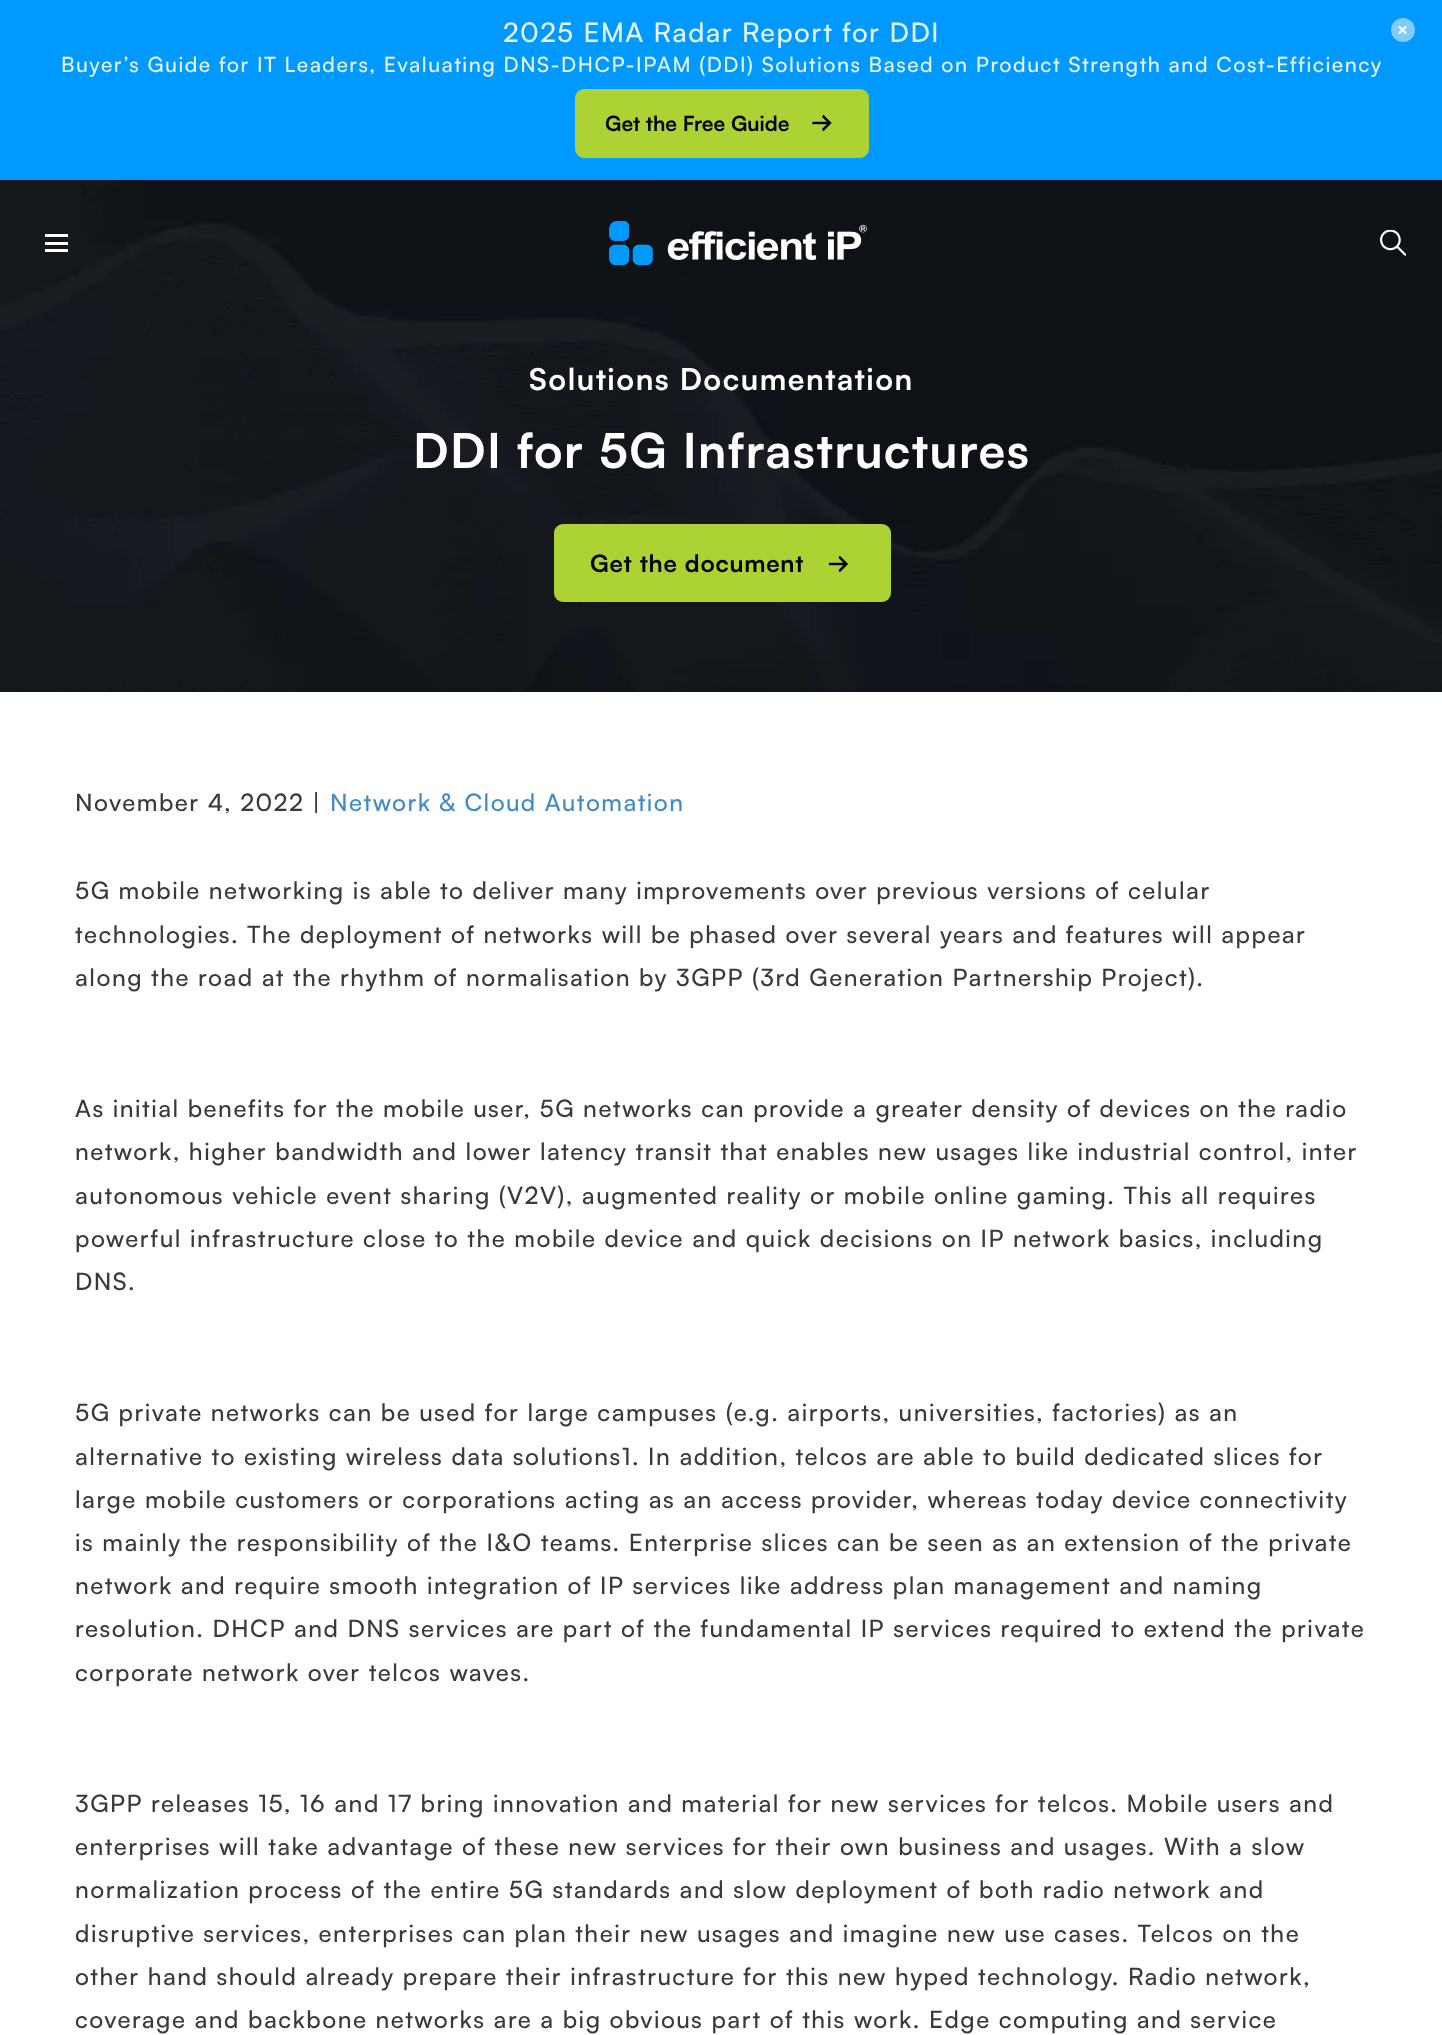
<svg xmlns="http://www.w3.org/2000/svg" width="1442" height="2035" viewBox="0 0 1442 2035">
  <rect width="100%" height="100%" fill="rgb(255,255,255)"/>
  <rect x="0" y="0" width="1442" height="180" fill="rgb(0,153,255)"/>
  <text x="503" y="42" font-family="Satoshi" font-size="27" font-weight="500" letter-spacing="1.5" fill="rgb(230,245,255)">2025 EMA Radar Report for DDI</text>
  <text x="61" y="72" font-family="Satoshi" font-size="21" font-weight="500" letter-spacing="1.5" fill="rgb(230,245,255)">Buyer’s Guide for IT Leaders, Evaluating DNS-DHCP-IPAM (DDI) Solutions Based on Product Strength and Cost-Efficiency</text>
  <rect x="576" y="90" width="292" height="67" rx="8" fill="rgb(172,210,51)" stroke="rgb(172,210,51)" stroke-width="2"/>
  <text x="605" y="131" font-family="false" font-size="21" font-weight="bold" fill="rgb(2,0,0)">Get the Free Guide</text>
  <image x="812" y="114" width="20" height="18" href="pic1.png"/>
  <image x="1398" y="25" width="9" height="10" href="pic2.png"/>
  <circle cx="1403" cy="30" r="12" fill="rgba(255,255,255,0.5)"/>
  <rect x="0" y="691" width="1442" height="1" fill="rgb(18,18,18)"/>
  <image x="0" y="180" width="1442" height="512" href="pic5.png"/>
  <rect x="45" y="234" width="23" height="3" fill="rgb(255,255,255)"/>
  <rect x="45" y="242" width="23" height="3" fill="rgb(255,255,255)"/>
  <rect x="45" y="249" width="23" height="3" fill="rgb(255,255,255)"/>
  <image x="609" y="221" width="258" height="45" href="pic3.png"/>
  <image x="1380" y="230" width="26" height="26" href="pic4.png"/>
  <text x="529" y="390" font-family="false" font-size="30" font-weight="bold" letter-spacing="1.5" fill="rgb(255,255,255)">Solutions Documentation</text>
  <text x="413" y="468" font-family="false" font-size="48" font-weight="bold" letter-spacing="1.5" fill="rgb(255,255,255)">DDI for 5G Infrastructures</text>
  <rect x="554" y="524" width="337" height="78" rx="9" fill="rgb(172,210,51)"/>
  <text x="590" y="572" font-family="false" font-size="24" font-weight="bold" letter-spacing="0.75" fill="rgb(2,0,0)">Get the document</text>
  <image x="828" y="555" width="20" height="18" href="pic6.png"/>
  <text x="75" y="811" font-family="Satoshi" font-size="24" font-weight="500" letter-spacing="1.5" fill="rgb(58,58,58)">November 4, 2022 |</text>
  <text x="330" y="811" font-family="Satoshi" font-size="24" font-weight="500" letter-spacing="1.5" fill="rgb(66,139,202)">Network &amp; Cloud Automation</text>
  <g font-family="Satoshi" font-size="24" font-weight="500" letter-spacing="1.5" fill="rgb(58,58,58)">
    <text>
      <tspan x="75" y="899">5G mobile networking is able to deliver many improvements over previous versions of celular</tspan>
      <tspan x="75" y="943">technologies. The deployment of networks will be phased over several years and features will appear</tspan>
      <tspan x="75" y="986">along the road at the rhythm of normalisation by 3GPP (3rd Generation Partnership Project).</tspan>
    </text>
    <text>
      <tspan x="75" y="1117">As initial benefits for the mobile user, 5G networks can provide a greater density of devices on the radio</tspan>
      <tspan x="75" y="1160">network, higher bandwidth and lower latency transit that enables new usages like industrial control, inter</tspan>
      <tspan x="75" y="1204">autonomous vehicle event sharing (V2V), augmented reality or mobile online gaming. This all requires</tspan>
      <tspan x="75" y="1247">powerful infrastructure close to the mobile device and quick decisions on IP network basics, including</tspan>
      <tspan x="75" y="1290">DNS.</tspan>
    </text>
    <text>
      <tspan x="75" y="1421">5G private networks can be used for large campuses (e.g. airports, universities, factories) as an</tspan>
      <tspan x="75" y="1465">alternative to existing wireless data solutions1. In addition, telcos are able to build dedicated slices for</tspan>
      <tspan x="75" y="1508">large mobile customers or corporations acting as an access provider, whereas today device connectivity</tspan>
      <tspan x="75" y="1551">is mainly the responsibility of the I&amp;O teams. Enterprise slices can be seen as an extension of the private</tspan>
      <tspan x="75" y="1594">network and require smooth integration of IP services like address plan management and naming</tspan>
      <tspan x="75" y="1637">resolution. DHCP and DNS services are part of the fundamental IP services required to extend the private</tspan>
      <tspan x="75" y="1681">corporate network over telcos waves.</tspan>
    </text>
    <text>
      <tspan x="75" y="1812">3GPP releases 15, 16 and 17 bring innovation and material for new services for telcos. Mobile users and</tspan>
      <tspan x="75" y="1855">enterprises will take advantage of these new services for their own business and usages. With a slow</tspan>
      <tspan x="75" y="1898">normalization process of the entire 5G standards and slow deployment of both radio network and</tspan>
      <tspan x="75" y="1942">disruptive services, enterprises can plan their new usages and imagine new use cases. Telcos on the</tspan>
      <tspan x="75" y="1985">other hand should already prepare their infrastructure for this new hyped technology. Radio network,</tspan>
      <tspan x="75" y="2028">coverage and backbone networks are a big obvious part of this work. Edge computing and service</tspan>
    </text>
  </g>
</svg>
